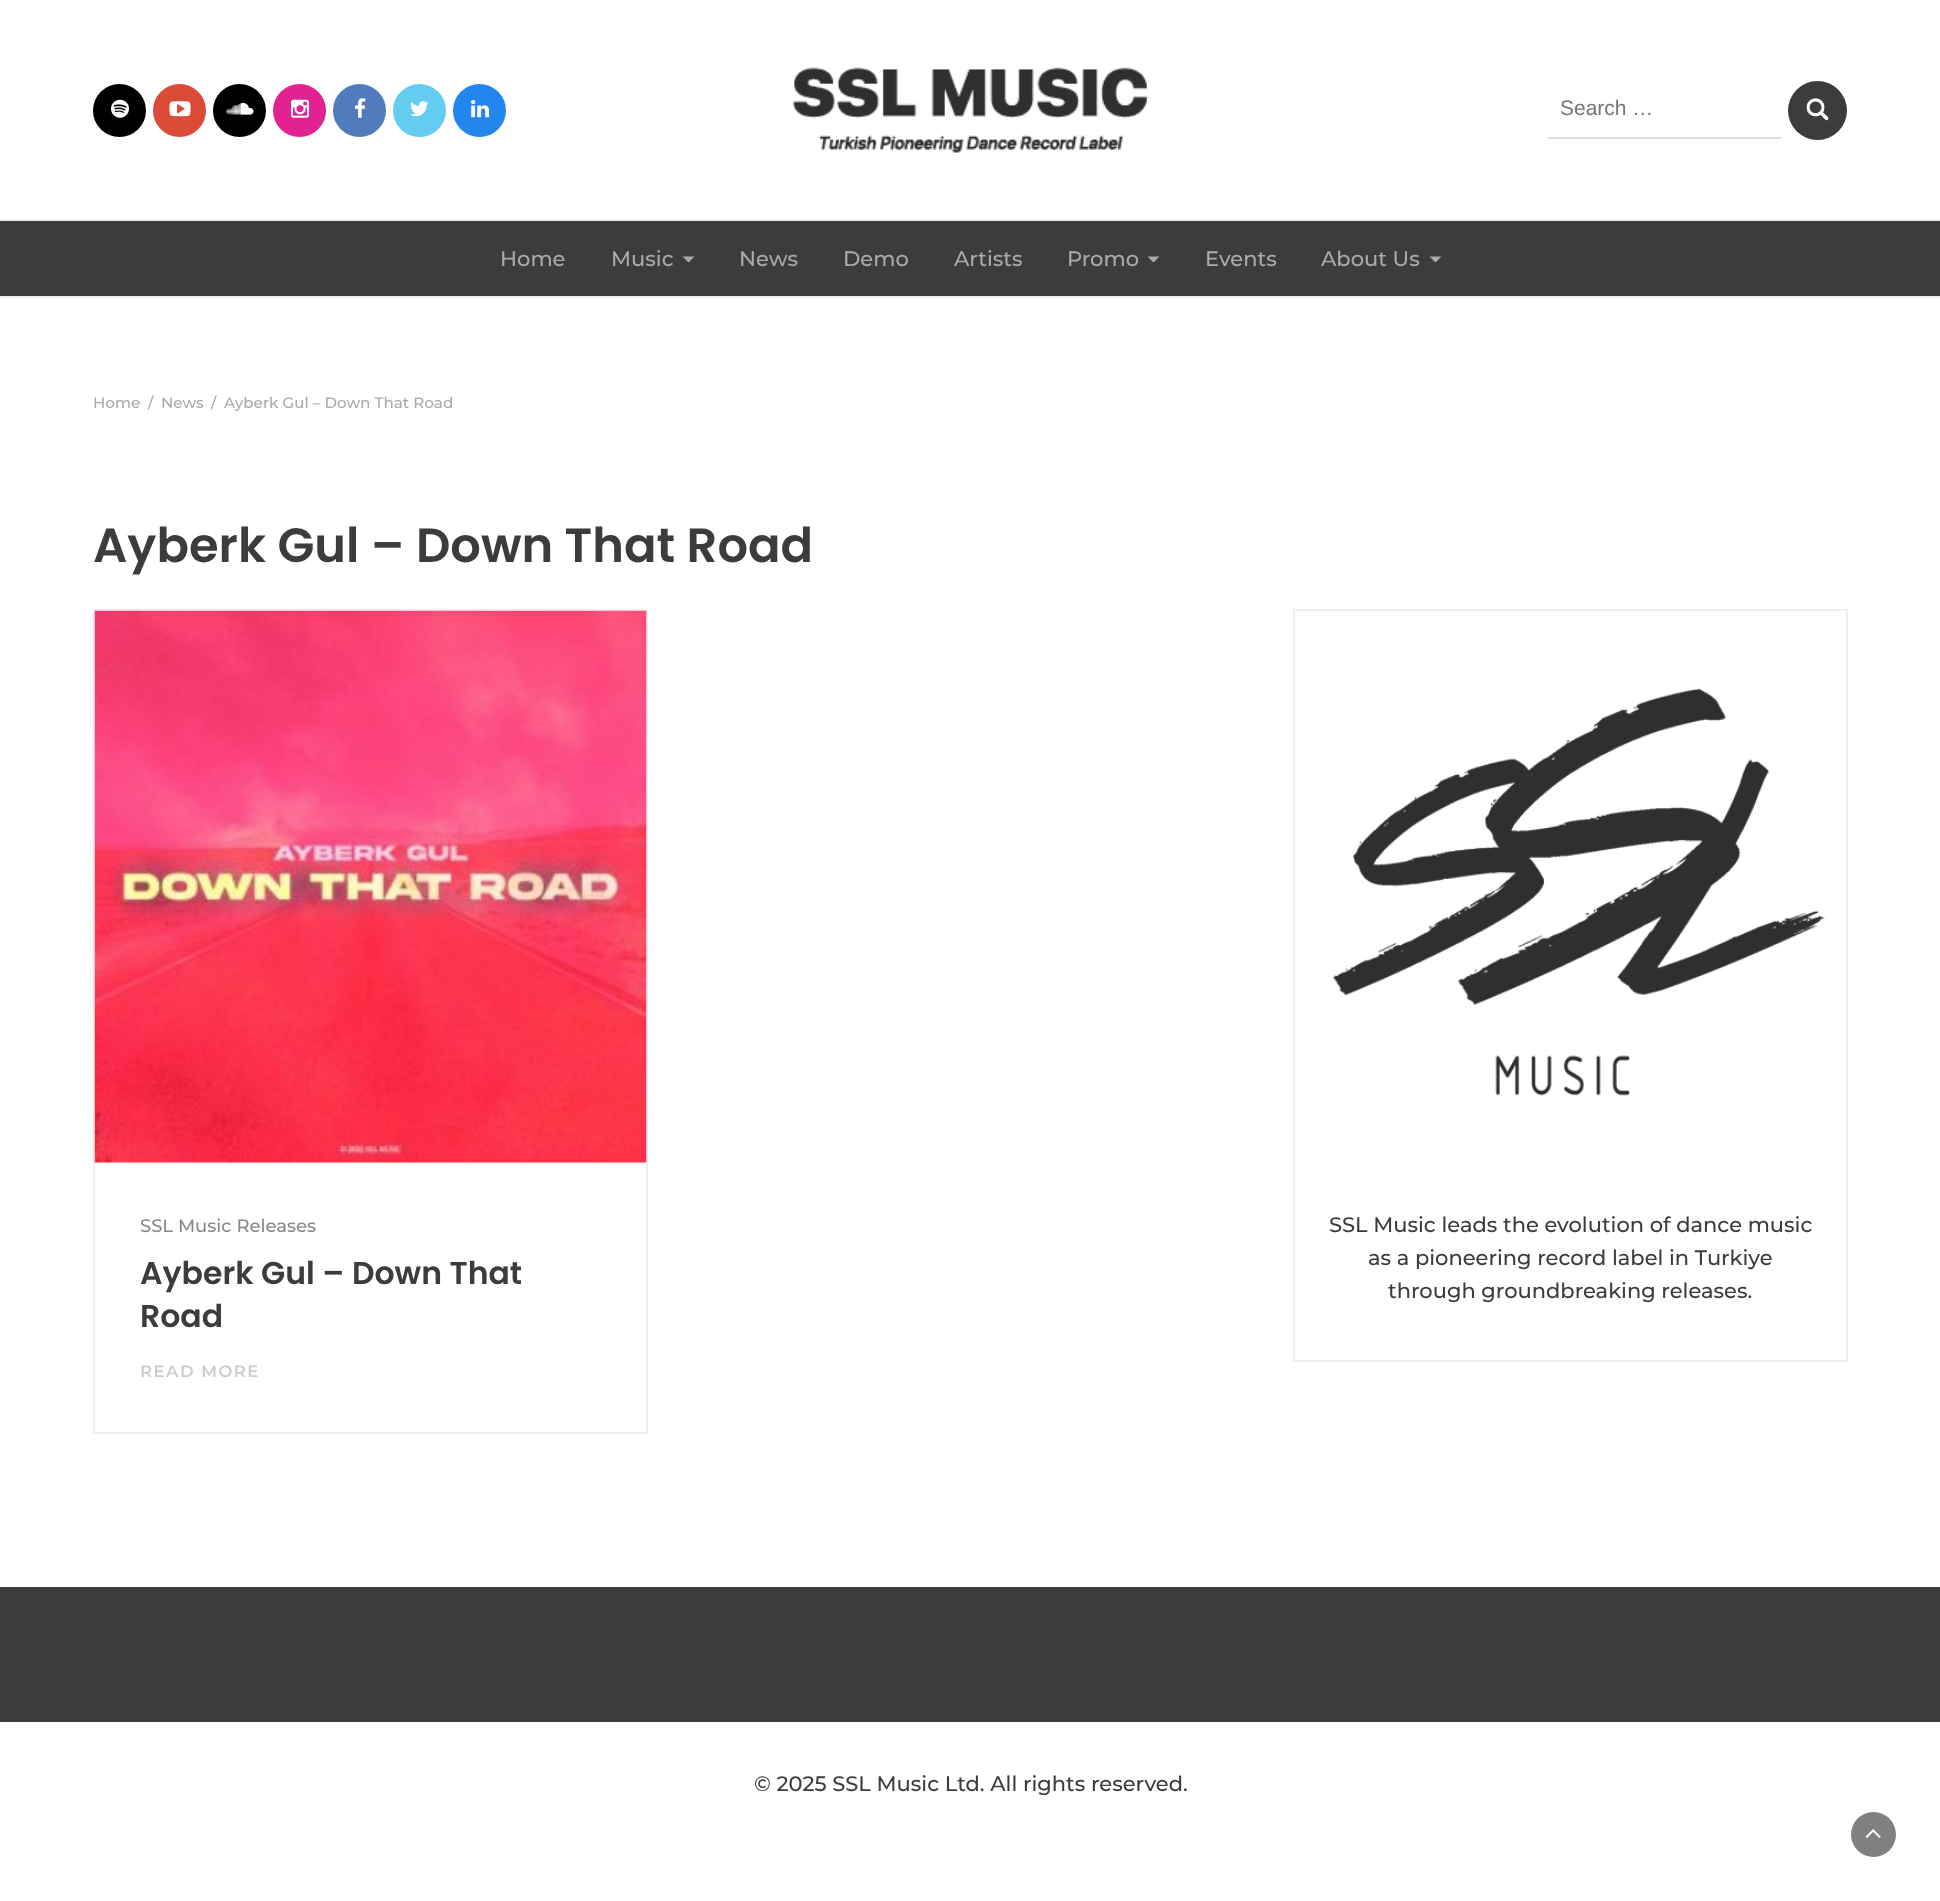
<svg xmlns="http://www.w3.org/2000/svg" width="1940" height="1901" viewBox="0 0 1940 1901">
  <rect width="100%" height="100%" fill="rgb(255,255,255)"/>
  <circle cx="119.5" cy="110.5" r="26.5" fill="rgb(0,0,0)"/>
  <image x="111" y="99" width="18" height="19" href="pic1.png"/>
  <circle cx="179.5" cy="110.5" r="26.5" fill="rgb(220,74,56)"/>
  <image x="169" y="101" width="22" height="16" href="pic2.png"/>
  <circle cx="239.5" cy="110.5" r="26.5" fill="rgb(0,0,0)"/>
  <image x="226" y="102" width="28" height="13" href="pic3.png"/>
  <circle cx="299.5" cy="110.5" r="26.5" fill="rgb(226,34,145)"/>
  <image x="291" y="99" width="18" height="19" href="pic4.png"/>
  <circle cx="359.5" cy="110.5" r="26.5" fill="rgb(80,124,190)"/>
  <image x="355" y="98" width="11" height="20" href="pic5.png"/>
  <circle cx="419.5" cy="110.5" r="26.5" fill="rgb(99,204,241)"/>
  <image x="410" y="101" width="19" height="16" href="pic6.png"/>
  <circle cx="479.5" cy="110.5" r="26.5" fill="rgb(35,134,239)"/>
  <image x="471" y="100" width="18" height="18" href="pic7.png"/>
  <image x="792" y="67" width="357" height="86" href="pic8.png"/>
  <rect x="1548" y="137" width="234" height="2" fill="rgb(221,221,221)"/>
  <text x="1560" y="115" font-family="Liberation Sans" font-size="21" fill="rgb(117,117,117)">Search …</text>
  <circle cx="1817.5" cy="110.5" r="29.5" fill="rgb(61,59,60)"/>
  <image x="1806" y="98" width="23" height="23" href="pic9.png"/>
  <rect x="0" y="221" width="1940" height="75" fill="rgb(61,59,60)"/>
  <rect x="0" y="219" width="1940" height="2" fill="rgb(238,238,238)"/>
  <rect x="0" y="296" width="1940" height="2" fill="rgb(238,238,238)"/>
  <g font-family="Montserrat" font-size="21" font-weight="500" fill="rgb(170,170,170)">
    <text x="500" y="266">Home</text>
    <text x="611" y="266">Music</text>
  </g>
  <path d="M682.5 256.5H694.5L688.5 262.5Z" fill="rgb(170,170,170)"/>
  <g font-family="Montserrat" font-size="21" font-weight="500" fill="rgb(170,170,170)">
    <text x="739" y="266">News</text>
    <text x="843" y="266">Demo</text>
    <text x="954" y="266">Artists</text>
    <text x="1067" y="266">Promo</text>
  </g>
  <path d="M1147.5 256.5H1159.5L1153.5 262.5Z" fill="rgb(170,170,170)"/>
  <g font-family="Montserrat" font-size="21" font-weight="500" fill="rgb(170,170,170)">
    <text x="1205" y="266">Events</text>
    <text x="1321" y="266">About Us</text>
  </g>
  <path d="M1429.5 256.5H1441.5L1435.5 262.5Z" fill="rgb(170,170,170)"/>
  <g font-family="Montserrat" font-size="15.2" font-weight="500" fill="rgb(170,170,170)">
    <text x="93" y="408">Home</text>
    <text x="148" y="408">/</text>
    <text x="161" y="408">News</text>
    <text x="211" y="408">/</text>
    <text x="224" y="408">Ayberk Gul – Down That Road</text>
  </g>
  <text x="93" y="562" font-family="Poppins" font-size="48" font-weight="600" fill="rgb(61,59,60)">Ayberk Gul – Down That Road</text>
  <rect x="94" y="610" width="553" height="823" fill="none" stroke="rgb(238,238,238)" stroke-width="2"/>
  <image x="94" y="610" width="553" height="553" href="pic10.png"/>
  <text x="140" y="1232" font-family="Montserrat" font-size="18" font-weight="500" fill="rgb(136,136,136)">SSL Music Releases</text>
  <g font-family="Poppins" font-size="31.5" font-weight="600" fill="rgb(61,59,60)">
    <text>
      <tspan x="140" y="1284">Ayberk Gul – Down That</tspan>
      <tspan x="140" y="1327">Road</tspan>
    </text>
  </g>
  <text x="140" y="1377" font-family="Montserrat" font-size="16.5" font-weight="600" letter-spacing="1.5" fill="rgb(204,204,204)">READ MORE</text>
  <rect x="1294" y="610" width="553" height="751" fill="none" stroke="rgb(238,238,238)" stroke-width="2"/>
  <image x="1333" y="688" width="492" height="408" href="pic11.png"/>
  <g font-family="Montserrat" font-size="21" font-weight="500" fill="rgb(61,59,60)">
    <text x="1329" y="1232">SSL Music leads the evolution of dance music</text>
    <text x="1368" y="1265">as a pioneering record label in Turkiye</text>
    <text x="1388" y="1298">through groundbreaking releases.</text>
  </g>
  <rect x="0" y="1587" width="1940" height="135" fill="rgb(61,59,60)"/>
  <text x="754" y="1791" font-family="Montserrat" font-size="21" font-weight="500" fill="rgb(61,59,60)">© 2025 SSL Music Ltd. All rights reserved.</text>
  <circle cx="1873.5" cy="1834.5" r="22.5" fill="rgb(128,128,128)"/>
  <image x="1865" y="1829" width="16" height="9" href="pic12.png"/>
</svg>
